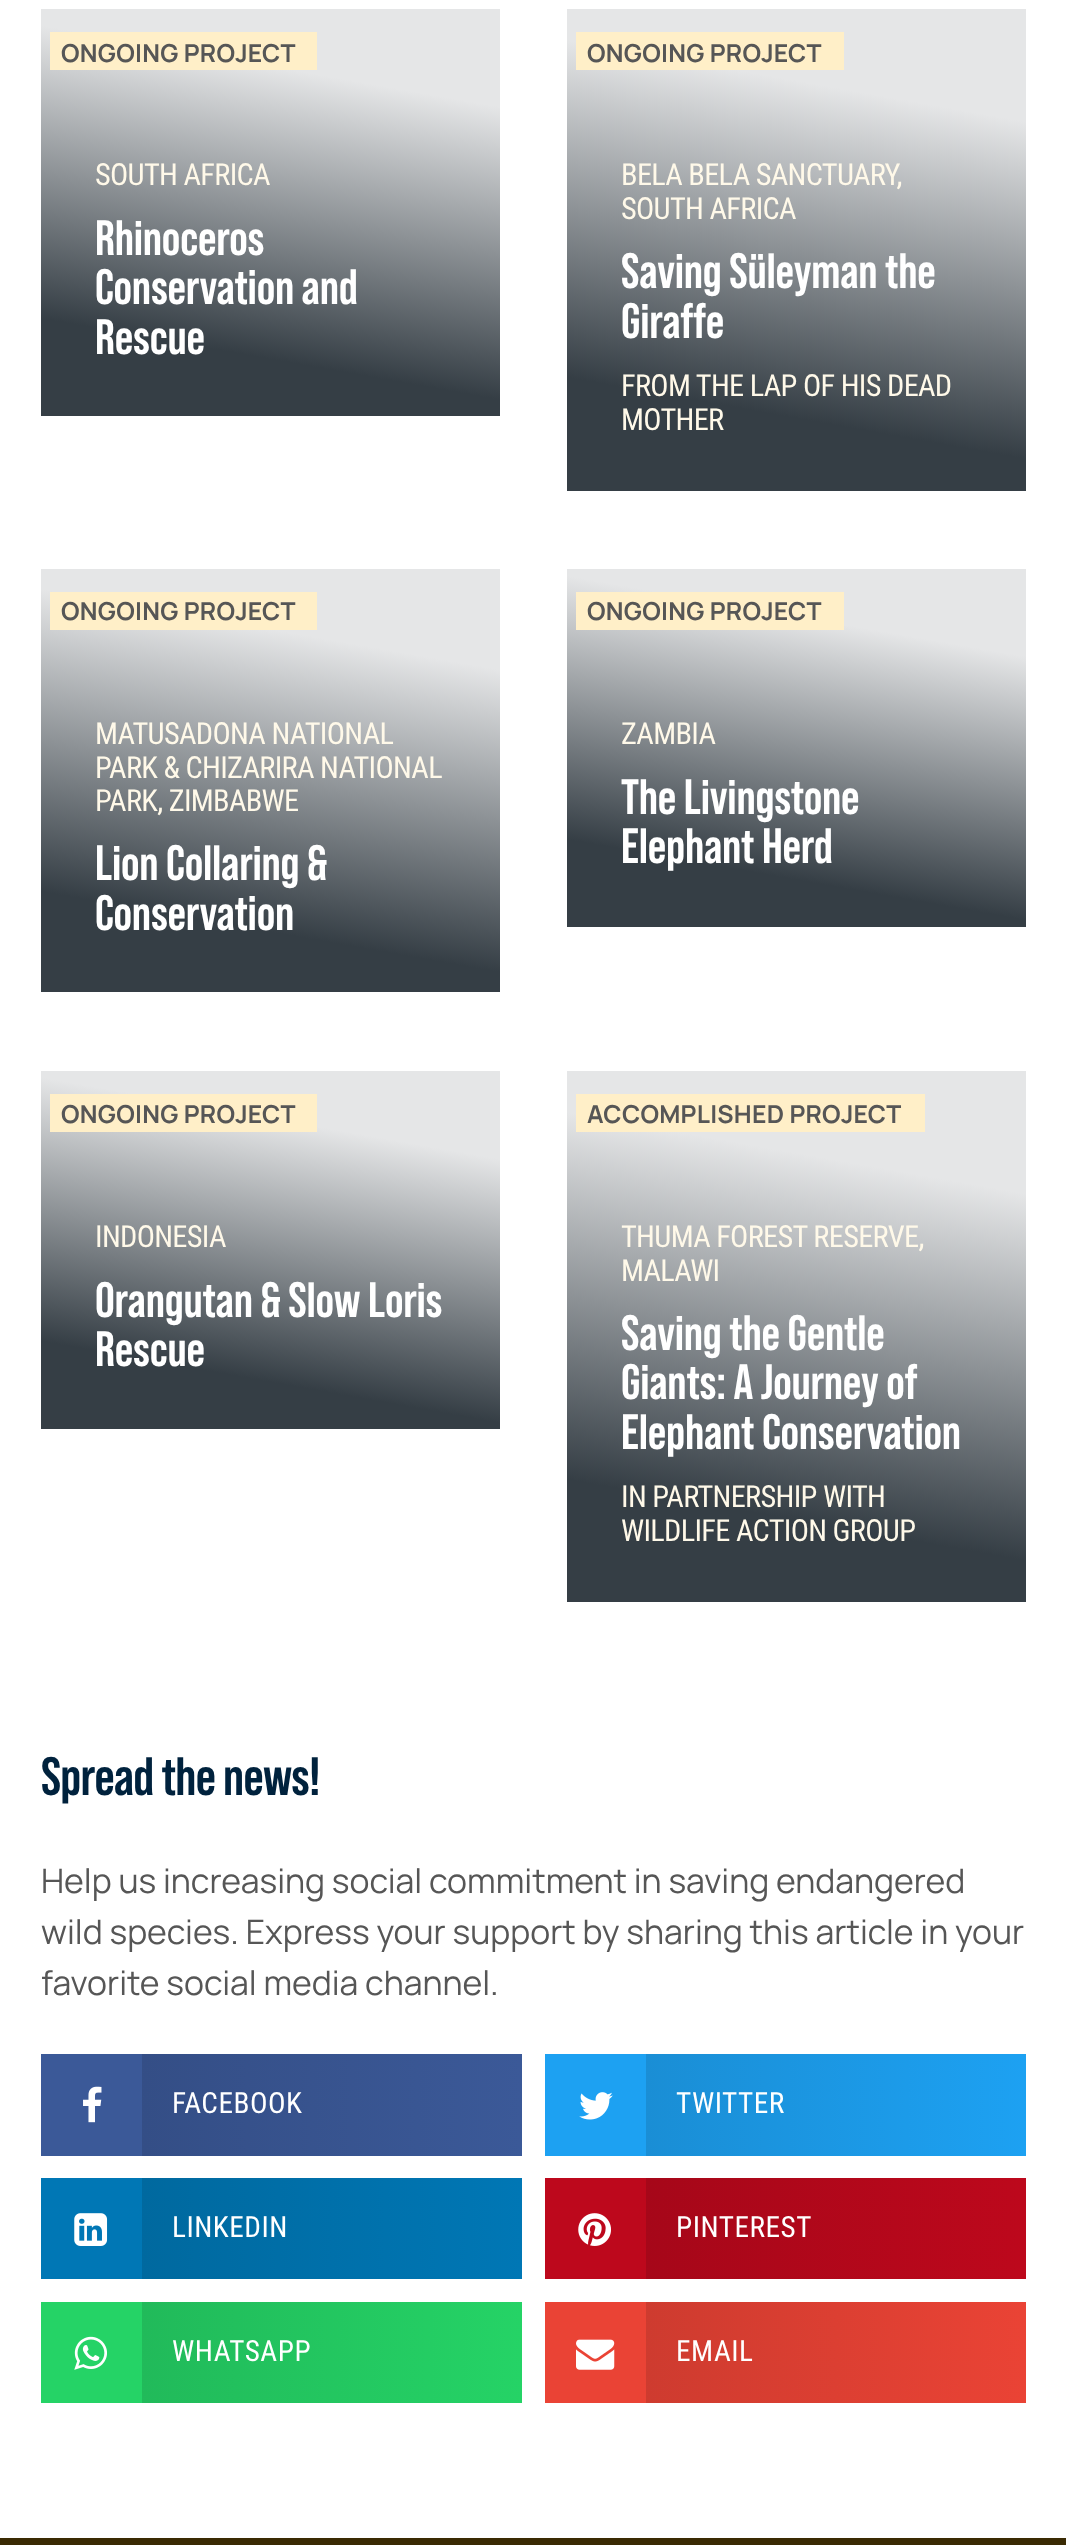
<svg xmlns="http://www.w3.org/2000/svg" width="1066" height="2545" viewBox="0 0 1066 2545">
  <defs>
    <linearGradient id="g1" gradientUnits="userSpaceOnUse" x1="312" y1="-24" x2="228" y2="449"><stop offset="0.2" stop-color="rgb(229,230,231)"/><stop offset="0.8" stop-color="rgb(53,62,69)"/></linearGradient>
    <linearGradient id="g2" gradientUnits="userSpaceOnUse" x1="845" y1="-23" x2="748" y2="522"><stop offset="0.2" stop-color="rgb(229,230,231)"/><stop offset="0.8" stop-color="rgb(53,62,69)"/></linearGradient>
    <linearGradient id="g3" gradientUnits="userSpaceOnUse" x1="313" y1="536" x2="227" y2="1025"><stop offset="0.2" stop-color="rgb(229,230,231)"/><stop offset="0.8" stop-color="rgb(53,62,69)"/></linearGradient>
    <linearGradient id="g4" gradientUnits="userSpaceOnUse" x1="834" y1="535" x2="759" y2="961"><stop offset="0.2" stop-color="rgb(229,230,231)"/><stop offset="0.8" stop-color="rgb(53,62,69)"/></linearGradient>
    <linearGradient id="g5" gradientUnits="userSpaceOnUse" x1="308" y1="1037" x2="232" y2="1463"><stop offset="0.2" stop-color="rgb(229,230,231)"/><stop offset="0.8" stop-color="rgb(53,62,69)"/></linearGradient>
    <linearGradient id="g6" gradientUnits="userSpaceOnUse" x1="849" y1="1040" x2="744" y2="1633"><stop offset="0.2" stop-color="rgb(229,230,231)"/><stop offset="0.8" stop-color="rgb(53,62,69)"/></linearGradient>
    <linearGradient id="g7" gradientUnits="userSpaceOnUse" x1="142" y1="2105" x2="522" y2="2105"><stop offset="0" stop-color="rgb(52,78,134)"/><stop offset="1" stop-color="rgb(59,89,152)"/></linearGradient>
    <linearGradient id="g8" gradientUnits="userSpaceOnUse" x1="646" y1="2105" x2="1026" y2="2105"><stop offset="0" stop-color="rgb(26,142,213)"/><stop offset="1" stop-color="rgb(29,161,242)"/></linearGradient>
    <linearGradient id="g9" gradientUnits="userSpaceOnUse" x1="142" y1="2229" x2="522" y2="2229"><stop offset="0" stop-color="rgb(0,105,159)"/><stop offset="1" stop-color="rgb(0,119,181)"/></linearGradient>
    <linearGradient id="g10" gradientUnits="userSpaceOnUse" x1="646" y1="2229" x2="1026" y2="2229"><stop offset="0" stop-color="rgb(166,7,25)"/><stop offset="1" stop-color="rgb(189,8,28)"/></linearGradient>
    <linearGradient id="g11" gradientUnits="userSpaceOnUse" x1="142" y1="2352" x2="522" y2="2352"><stop offset="0" stop-color="rgb(33,186,90)"/><stop offset="1" stop-color="rgb(37,211,102)"/></linearGradient>
    <linearGradient id="g12" gradientUnits="userSpaceOnUse" x1="646" y1="2352" x2="1026" y2="2352"><stop offset="0" stop-color="rgb(206,59,47)"/><stop offset="1" stop-color="rgb(234,67,53)"/></linearGradient>
  </defs>
  <rect width="100%" height="100%" fill="rgb(255,255,255)"/>
  <rect x="41" y="9" width="459" height="407" fill="url(#g1)"/>
  <rect x="50" y="32" width="267" height="38" fill="rgb(255,239,200)"/>
  <text x="61" y="62" font-family="Manrope" font-size="24.75" font-weight="200" letter-spacing="0.25" fill="rgb(86,86,86)">ONGOING PROJECT</text>
  <text x="95" y="185" font-family="Roboto Condensed" font-size="30.4" letter-spacing="-0.7" fill="rgb(255,249,233)">SOUTH AFRICA</text>
  <g font-family="Bebas Neue" font-size="49.5" font-weight="bold" letter-spacing="-0.25" fill="rgb(255,255,255)">
    <text>
      <tspan x="95" y="255">Rhinoceros</tspan>
      <tspan x="95" y="304">Conservation and</tspan>
      <tspan x="95" y="354">Rescue</tspan>
    </text>
  </g>
  <rect x="567" y="9" width="459" height="482" fill="url(#g2)"/>
  <rect x="576" y="32" width="268" height="38" fill="rgb(255,239,200)"/>
  <text x="587" y="62" font-family="Manrope" font-size="24.75" font-weight="200" letter-spacing="0.25" fill="rgb(86,86,86)">ONGOING PROJECT</text>
  <g font-family="Roboto Condensed" font-size="30.4" letter-spacing="-0.7" fill="rgb(255,249,233)">
    <text>
      <tspan x="621" y="185">BELA BELA SANCTUARY,</tspan>
      <tspan x="621" y="219">SOUTH AFRICA</tspan>
    </text>
  </g>
  <g font-family="Bebas Neue" font-size="49.5" font-weight="bold" letter-spacing="-0.25" fill="rgb(255,255,255)">
    <text>
      <tspan x="621" y="288">Saving Süleyman the</tspan>
      <tspan x="621" y="338">Giraffe</tspan>
    </text>
  </g>
  <g font-family="Roboto Condensed" font-size="30.4" letter-spacing="-0.7" fill="rgb(255,249,233)">
    <text>
      <tspan x="621" y="396">FROM THE LAP OF HIS DEAD</tspan>
      <tspan x="621" y="430">MOTHER</tspan>
    </text>
  </g>
  <rect x="41" y="569" width="459" height="423" fill="url(#g3)"/>
  <rect x="50" y="592" width="267" height="38" fill="rgb(255,239,200)"/>
  <text x="61" y="620" font-family="Manrope" font-size="24.75" font-weight="200" letter-spacing="0.25" fill="rgb(86,86,86)">ONGOING PROJECT</text>
  <g font-family="Roboto Condensed" font-size="30.4" letter-spacing="-0.7" fill="rgb(255,249,233)">
    <text>
      <tspan x="95" y="744">MATUSADONA NATIONAL</tspan>
      <tspan x="95" y="778">PARK &amp; CHIZARIRA NATIONAL</tspan>
      <tspan x="95" y="811">PARK, ZIMBABWE</tspan>
    </text>
  </g>
  <g font-family="Bebas Neue" font-size="49.5" font-weight="bold" letter-spacing="-0.25" fill="rgb(255,255,255)">
    <text>
      <tspan x="95" y="880">Lion Collaring &amp;</tspan>
      <tspan x="95" y="930">Conservation</tspan>
    </text>
  </g>
  <rect x="567" y="569" width="459" height="358" fill="url(#g4)"/>
  <rect x="576" y="592" width="268" height="38" fill="rgb(255,239,200)"/>
  <text x="587" y="620" font-family="Manrope" font-size="24.75" font-weight="200" letter-spacing="0.25" fill="rgb(86,86,86)">ONGOING PROJECT</text>
  <text x="621" y="744" font-family="Roboto Condensed" font-size="30.4" letter-spacing="-0.7" fill="rgb(255,249,233)">ZAMBIA</text>
  <g font-family="Bebas Neue" font-size="49.5" font-weight="bold" letter-spacing="-0.25" fill="rgb(255,255,255)">
    <text>
      <tspan x="621" y="814">The Livingstone</tspan>
      <tspan x="621" y="863">Elephant Herd</tspan>
    </text>
  </g>
  <rect x="41" y="1071" width="459" height="358" fill="url(#g5)"/>
  <rect x="50" y="1094" width="267" height="38" fill="rgb(255,239,200)"/>
  <text x="61" y="1123" font-family="Manrope" font-size="24.75" font-weight="200" letter-spacing="0.25" fill="rgb(86,86,86)">ONGOING PROJECT</text>
  <text x="95" y="1247" font-family="Roboto Condensed" font-size="30.4" letter-spacing="-0.7" fill="rgb(255,249,233)">INDONESIA</text>
  <g font-family="Bebas Neue" font-size="49.5" font-weight="bold" letter-spacing="-0.25" fill="rgb(255,255,255)">
    <text>
      <tspan x="95" y="1317">Orangutan &amp; Slow Loris</tspan>
      <tspan x="95" y="1366">Rescue</tspan>
    </text>
  </g>
  <rect x="567" y="1071" width="459" height="531" fill="url(#g6)"/>
  <rect x="576" y="1094" width="349" height="38" fill="rgb(255,239,200)"/>
  <text x="587" y="1123" font-family="Manrope" font-size="24.75" font-weight="200" letter-spacing="0.25" fill="rgb(86,86,86)">ACCOMPLISHED PROJECT</text>
  <g font-family="Roboto Condensed" font-size="30.4" letter-spacing="-0.7" fill="rgb(255,249,233)">
    <text>
      <tspan x="621" y="1247">THUMA FOREST RESERVE,</tspan>
      <tspan x="621" y="1281">MALAWI</tspan>
    </text>
  </g>
  <g font-family="Bebas Neue" font-size="49.5" font-weight="bold" letter-spacing="-0.25" fill="rgb(255,255,255)">
    <text>
      <tspan x="621" y="1350">Saving the Gentle</tspan>
      <tspan x="621" y="1399">Giants: A Journey of</tspan>
      <tspan x="621" y="1449">Elephant Conservation</tspan>
    </text>
  </g>
  <g font-family="Roboto Condensed" font-size="30.4" letter-spacing="-0.7" fill="rgb(255,249,233)">
    <text>
      <tspan x="621" y="1507">IN PARTNERSHIP WITH</tspan>
      <tspan x="621" y="1541">WILDLIFE ACTION GROUP</tspan>
    </text>
  </g>
  <text x="41" y="1795" font-family="Bebas Neue" font-size="54" font-weight="bold" letter-spacing="-0.7" fill="rgb(0,34,61)">Spread the news!</text>
  <g font-family="'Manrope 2'" font-size="33.75" font-weight="200" fill="rgb(86,86,86)">
    <text>
      <tspan x="41" y="1893">Help us increasing social commitment in saving endangered</tspan>
      <tspan x="41" y="1944">wild species. Express your support by sharing this article in your</tspan>
      <tspan x="41" y="1995">favorite social media channel.</tspan>
    </text>
  </g>
  <rect x="41" y="2054" width="101" height="102" fill="rgb(59,89,152)"/>
  <image x="83" y="2086" width="19" height="37" href="pic1.png"/>
  <rect x="142" y="2054" width="380" height="102" fill="url(#g7)"/>
  <text x="172" y="2113" font-family="Roboto Condensed" font-size="29.25" letter-spacing="0.5" fill="rgb(255,255,255)">FACEBOOK</text>
  <rect x="545" y="2054" width="101" height="102" fill="rgb(29,161,242)"/>
  <image x="579" y="2092" width="34" height="28" href="pic2.png"/>
  <rect x="646" y="2054" width="380" height="102" fill="url(#g8)"/>
  <text x="676" y="2113" font-family="Roboto Condensed" font-size="29.25" letter-spacing="0.5" fill="rgb(255,255,255)">TWITTER</text>
  <rect x="41" y="2178" width="101" height="101" fill="rgb(0,119,181)"/>
  <image x="74" y="2213" width="34" height="33" href="pic3.png"/>
  <rect x="142" y="2178" width="380" height="101" fill="url(#g9)"/>
  <text x="172" y="2237" font-family="Roboto Condensed" font-size="29.25" letter-spacing="0.5" fill="rgb(255,255,255)">LINKEDIN</text>
  <rect x="545" y="2178" width="101" height="101" fill="rgb(189,8,28)"/>
  <image x="578" y="2213" width="33" height="33" href="pic4.png"/>
  <rect x="646" y="2178" width="380" height="101" fill="url(#g10)"/>
  <text x="676" y="2237" font-family="Roboto Condensed" font-size="29.25" letter-spacing="0.5" fill="rgb(255,255,255)">PINTEREST</text>
  <rect x="41" y="2302" width="101" height="101" fill="rgb(37,211,102)"/>
  <image x="74" y="2336" width="33" height="34" href="pic5.png"/>
  <rect x="142" y="2302" width="380" height="101" fill="url(#g11)"/>
  <text x="172" y="2361" font-family="Roboto Condensed" font-size="29.25" letter-spacing="0.5" fill="rgb(255,255,255)">WHATSAPP</text>
  <rect x="545" y="2302" width="101" height="101" fill="rgb(234,67,53)"/>
  <image x="576" y="2339" width="39" height="31" href="pic6.png"/>
  <rect x="646" y="2302" width="380" height="101" fill="url(#g12)"/>
  <text x="676" y="2361" font-family="Roboto Condensed" font-size="29.25" letter-spacing="0.5" fill="rgb(255,255,255)">EMAIL</text>
  <rect x="0" y="2538" width="1066" height="7" fill="rgb(58,42,3)"/>
</svg>
